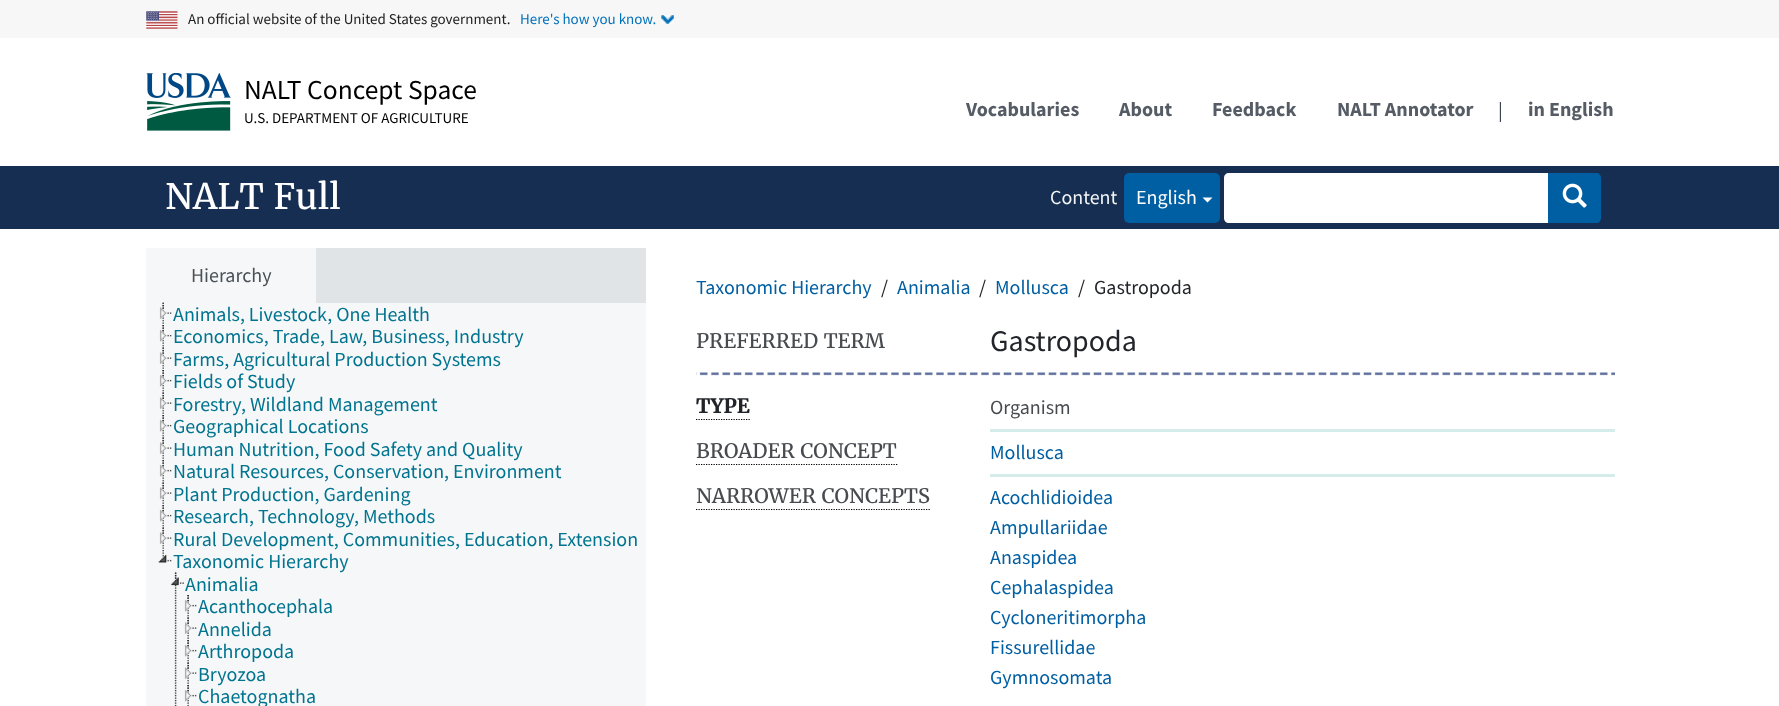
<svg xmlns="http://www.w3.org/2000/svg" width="1779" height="706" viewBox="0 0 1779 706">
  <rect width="100%" height="100%" fill="rgb(255,255,255)"/>
  <rect x="0" y="0" width="1779" height="38" fill="rgb(247,247,247)"/>
  <image x="146" y="11" width="32" height="18" href="pic1.png"/>
  <text x="188" y="24" font-family="Source Sans Pro" font-size="15" fill="rgb(33,33,33)">An official website of the United States government.</text>
  <image x="661" y="15" width="13" height="9" href="pic2.png"/>
  <text x="520" y="24" font-family="Source Sans Pro" font-size="15" fill="rgb(0,113,188)">Here's how you know.</text>
  <image x="146" y="73" width="85" height="58" href="pic3.png"/>
  <text x="244" y="99" font-family="Source Sans Pro" font-size="27.5" fill="rgb(0,0,0)">NALT Concept Space</text>
  <text x="244" y="123" font-family="Source Sans Pro" font-size="15" fill="rgb(0,0,0)">U.S. DEPARTMENT OF AGRICULTURE</text>
  <g font-family="Source Sans Pro" font-size="20" font-weight="bold" fill="rgb(86,92,101)">
    <text x="966" y="116">Vocabularies</text>
    <text x="1119" y="116">About</text>
    <text x="1212" y="116">Feedback</text>
    <text x="1337" y="116">NALT Annotator</text>
  </g>
  <text x="1498" y="117" font-family="Source Sans Pro" font-size="20" fill="rgb(57,69,84)">|</text>
  <text x="1528" y="116" font-family="Source Sans Pro" font-size="20" font-weight="bold" fill="rgb(86,92,101)">in English</text>
  <rect x="0" y="166" width="1779" height="63" fill="rgb(22,46,81)"/>
  <text x="165" y="209" font-family="Merriweather" font-size="35" fill="rgb(255,255,255)">NALT Full</text>
  <text x="1050" y="204" font-family="Source Sans Pro" font-size="20" fill="rgb(243,245,246)">Content</text>
  <rect x="1124" y="173" width="96" height="50" rx="5" fill="rgb(0,94,162)"/>
  <text x="1136" y="204" font-family="Source Sans Pro" font-size="20" fill="rgb(255,255,255)">English</text>
  <path d="M1202.5 197.5H1212.5L1207.5 202.5Z" fill="rgb(255,255,255)"/>
  <path d="M1229 173H1549V223H1229C1226 223 1224 221 1224 218V178C1224 175 1226 173 1229 173Z" fill="rgb(255,255,255)"/>
  <path d="M1548 173H1596C1599 173 1601 175 1601 178V218C1601 221 1599 223 1596 223H1548Z" fill="rgb(0,94,162)"/>
  <image x="1562" y="183" width="25" height="25" href="pic4.png"/>
  <rect x="316" y="248" width="330" height="55" fill="rgb(224,228,231)"/>
  <rect x="146" y="248" width="170" height="55" fill="rgb(246,247,248)"/>
  <text x="191" y="282" font-family="Source Sans Pro" font-size="20" fill="rgb(73,80,87)">Hierarchy</text>
  <rect x="146" y="303" width="500" height="403" fill="rgb(246,247,248)"/>
  <image x="162" y="302" width="2" height="22" href="pic5.png"/>
  <image x="159" y="302" width="13" height="17" href="pic6.png"/>
  <text x="173" y="321" font-family="Source Sans Pro" font-size="20" fill="rgb(0,116,143)">Animals, Livestock, One Health</text>
  <image x="162" y="325" width="2" height="22" href="pic7.png"/>
  <image x="159" y="325" width="13" height="17" href="pic8.png"/>
  <text x="173" y="343" font-family="Source Sans Pro" font-size="20" fill="rgb(0,116,143)">Economics, Trade, Law, Business, Industry</text>
  <image x="162" y="347" width="2" height="22" href="pic9.png"/>
  <image x="159" y="347" width="13" height="17" href="pic10.png"/>
  <text x="173" y="366" font-family="Source Sans Pro" font-size="20" fill="rgb(0,116,143)">Farms, Agricultural Production Systems</text>
  <image x="162" y="370" width="2" height="22" href="pic7.png"/>
  <image x="159" y="370" width="13" height="17" href="pic8.png"/>
  <text x="173" y="388" font-family="Source Sans Pro" font-size="20" fill="rgb(0,116,143)">Fields of Study</text>
  <image x="162" y="392" width="2" height="22" href="pic9.png"/>
  <image x="159" y="392" width="13" height="17" href="pic10.png"/>
  <text x="173" y="411" font-family="Source Sans Pro" font-size="20" fill="rgb(0,116,143)">Forestry, Wildland Management</text>
  <image x="162" y="415" width="2" height="22" href="pic7.png"/>
  <image x="159" y="415" width="13" height="17" href="pic8.png"/>
  <text x="173" y="433" font-family="Source Sans Pro" font-size="20" fill="rgb(0,116,143)">Geographical Locations</text>
  <image x="162" y="437" width="2" height="22" href="pic9.png"/>
  <image x="159" y="437" width="13" height="17" href="pic10.png"/>
  <text x="173" y="456" font-family="Source Sans Pro" font-size="20" fill="rgb(0,116,143)">Human Nutrition, Food Safety and Quality</text>
  <image x="162" y="460" width="2" height="22" href="pic7.png"/>
  <image x="159" y="460" width="13" height="17" href="pic8.png"/>
  <text x="173" y="478" font-family="Source Sans Pro" font-size="20" fill="rgb(0,116,143)">Natural Resources, Conservation, Environment</text>
  <image x="162" y="482" width="2" height="22" href="pic9.png"/>
  <image x="159" y="482" width="13" height="17" href="pic10.png"/>
  <text x="173" y="501" font-family="Source Sans Pro" font-size="20" fill="rgb(0,116,143)">Plant Production, Gardening</text>
  <image x="162" y="505" width="2" height="22" href="pic7.png"/>
  <image x="159" y="505" width="13" height="17" href="pic8.png"/>
  <text x="173" y="523" font-family="Source Sans Pro" font-size="20" fill="rgb(0,116,143)">Research, Technology, Methods</text>
  <image x="162" y="527" width="2" height="22" href="pic9.png"/>
  <image x="159" y="527" width="13" height="17" href="pic10.png"/>
  <text x="173" y="546" font-family="Source Sans Pro" font-size="20" fill="rgb(0,116,143)">Rural Development, Communities, Education, Extension</text>
  <image x="158" y="550" width="14" height="13" href="pic11.png"/>
  <image x="174" y="572" width="3" height="134" href="pic12.png"/>
  <text x="173" y="568" font-family="Source Sans Pro" font-size="20" fill="rgb(0,116,143)">Taxonomic Hierarchy</text>
  <image x="171" y="572" width="13" height="14" href="pic13.png"/>
  <text x="185" y="591" font-family="Source Sans Pro" font-size="20" fill="rgb(0,116,143)">Animalia</text>
  <image x="187" y="595" width="2" height="22" href="pic14.png"/>
  <image x="184" y="595" width="13" height="17" href="pic15.png"/>
  <text x="198" y="613" font-family="Source Sans Pro" font-size="20" fill="rgb(0,116,143)">Acanthocephala</text>
  <image x="187" y="617" width="2" height="22" href="pic16.png"/>
  <image x="184" y="617" width="13" height="17" href="pic17.png"/>
  <text x="198" y="636" font-family="Source Sans Pro" font-size="20" fill="rgb(0,116,143)">Annelida</text>
  <image x="187" y="640" width="2" height="22" href="pic14.png"/>
  <image x="184" y="640" width="13" height="17" href="pic15.png"/>
  <text x="198" y="658" font-family="Source Sans Pro" font-size="20" fill="rgb(0,116,143)">Arthropoda</text>
  <image x="187" y="662" width="2" height="22" href="pic16.png"/>
  <image x="184" y="662" width="13" height="17" href="pic17.png"/>
  <text x="198" y="681" font-family="Source Sans Pro" font-size="20" fill="rgb(0,116,143)">Bryozoa</text>
  <image x="187" y="685" width="2" height="21" href="pic18.png"/>
  <image x="184" y="685" width="13" height="17" href="pic15.png"/>
  <text x="198" y="703" font-family="Source Sans Pro" font-size="20" fill="rgb(0,116,143)">Chaetognatha</text>
  <text x="696" y="294" font-family="Source Sans Pro" font-size="20" fill="rgb(0,94,162)">Taxonomic Hierarchy</text>
  <text x="881" y="294" font-family="Source Sans Pro" font-size="20" fill="rgb(33,37,41)">/</text>
  <text x="897" y="294" font-family="Source Sans Pro" font-size="20" fill="rgb(0,94,162)">Animalia</text>
  <text x="979" y="294" font-family="Source Sans Pro" font-size="20" fill="rgb(33,37,41)">/</text>
  <text x="995" y="294" font-family="Source Sans Pro" font-size="20" fill="rgb(0,94,162)">Mollusca</text>
  <g font-family="Source Sans Pro" font-size="20" fill="rgb(33,37,41)">
    <text x="1078" y="294">/</text>
    <text x="1094" y="294">Gastropoda</text>
  </g>
  <text x="696" y="348" font-family="Merriweather" font-size="20" fill="rgb(71,75,79)">PREFERRED TERM</text>
  <text x="990" y="351" font-family="Source Sans Pro" font-size="30" fill="rgb(33,37,41)">Gastropoda</text>
  <image x="696" y="372" width="919" height="4" href="pic19.png"/>
  <text x="696" y="413" font-family="Merriweather" font-size="20" font-weight="bold" fill="rgb(33,37,41)">TYPE</text>
  <path d="M696 419.5H750" fill="none" stroke="rgb(0,0,0)" stroke-width="1.2" stroke-dasharray="1.25 1.25"/>
  <rect x="990" y="429" width="625" height="3" fill="rgb(212,237,235)"/>
  <text x="990" y="414" font-family="Source Sans Pro" font-size="20" fill="rgb(71,75,79)">Organism</text>
  <text x="696" y="458" font-family="Merriweather" font-size="20" fill="rgb(71,75,79)">BROADER CONCEPT</text>
  <path d="M696 464.5H897.5" fill="none" stroke="rgb(0,0,0)" stroke-width="1.2" stroke-dasharray="1.25 1.25"/>
  <rect x="990" y="474" width="625" height="3" fill="rgb(212,237,235)"/>
  <text x="990" y="459" font-family="Source Sans Pro" font-size="20" fill="rgb(0,94,162)">Mollusca</text>
  <text x="696" y="503" font-family="Merriweather" font-size="20" fill="rgb(71,75,79)">NARROWER CONCEPTS</text>
  <path d="M696 509.5H930" fill="none" stroke="rgb(0,0,0)" stroke-width="1.2" stroke-dasharray="1.25 1.25"/>
  <g font-family="Source Sans Pro" font-size="20" fill="rgb(0,94,162)">
    <text>
      <tspan x="990" y="504">Acochlidioidea</tspan>
      <tspan x="990" y="534">Ampullariidae</tspan>
      <tspan x="990" y="564">Anaspidea</tspan>
      <tspan x="990" y="594">Cephalaspidea</tspan>
      <tspan x="990" y="624">Cycloneritimorpha</tspan>
      <tspan x="990" y="654">Fissurellidae</tspan>
      <tspan x="990" y="684">Gymnosomata</tspan>
    </text>
  </g>
</svg>
